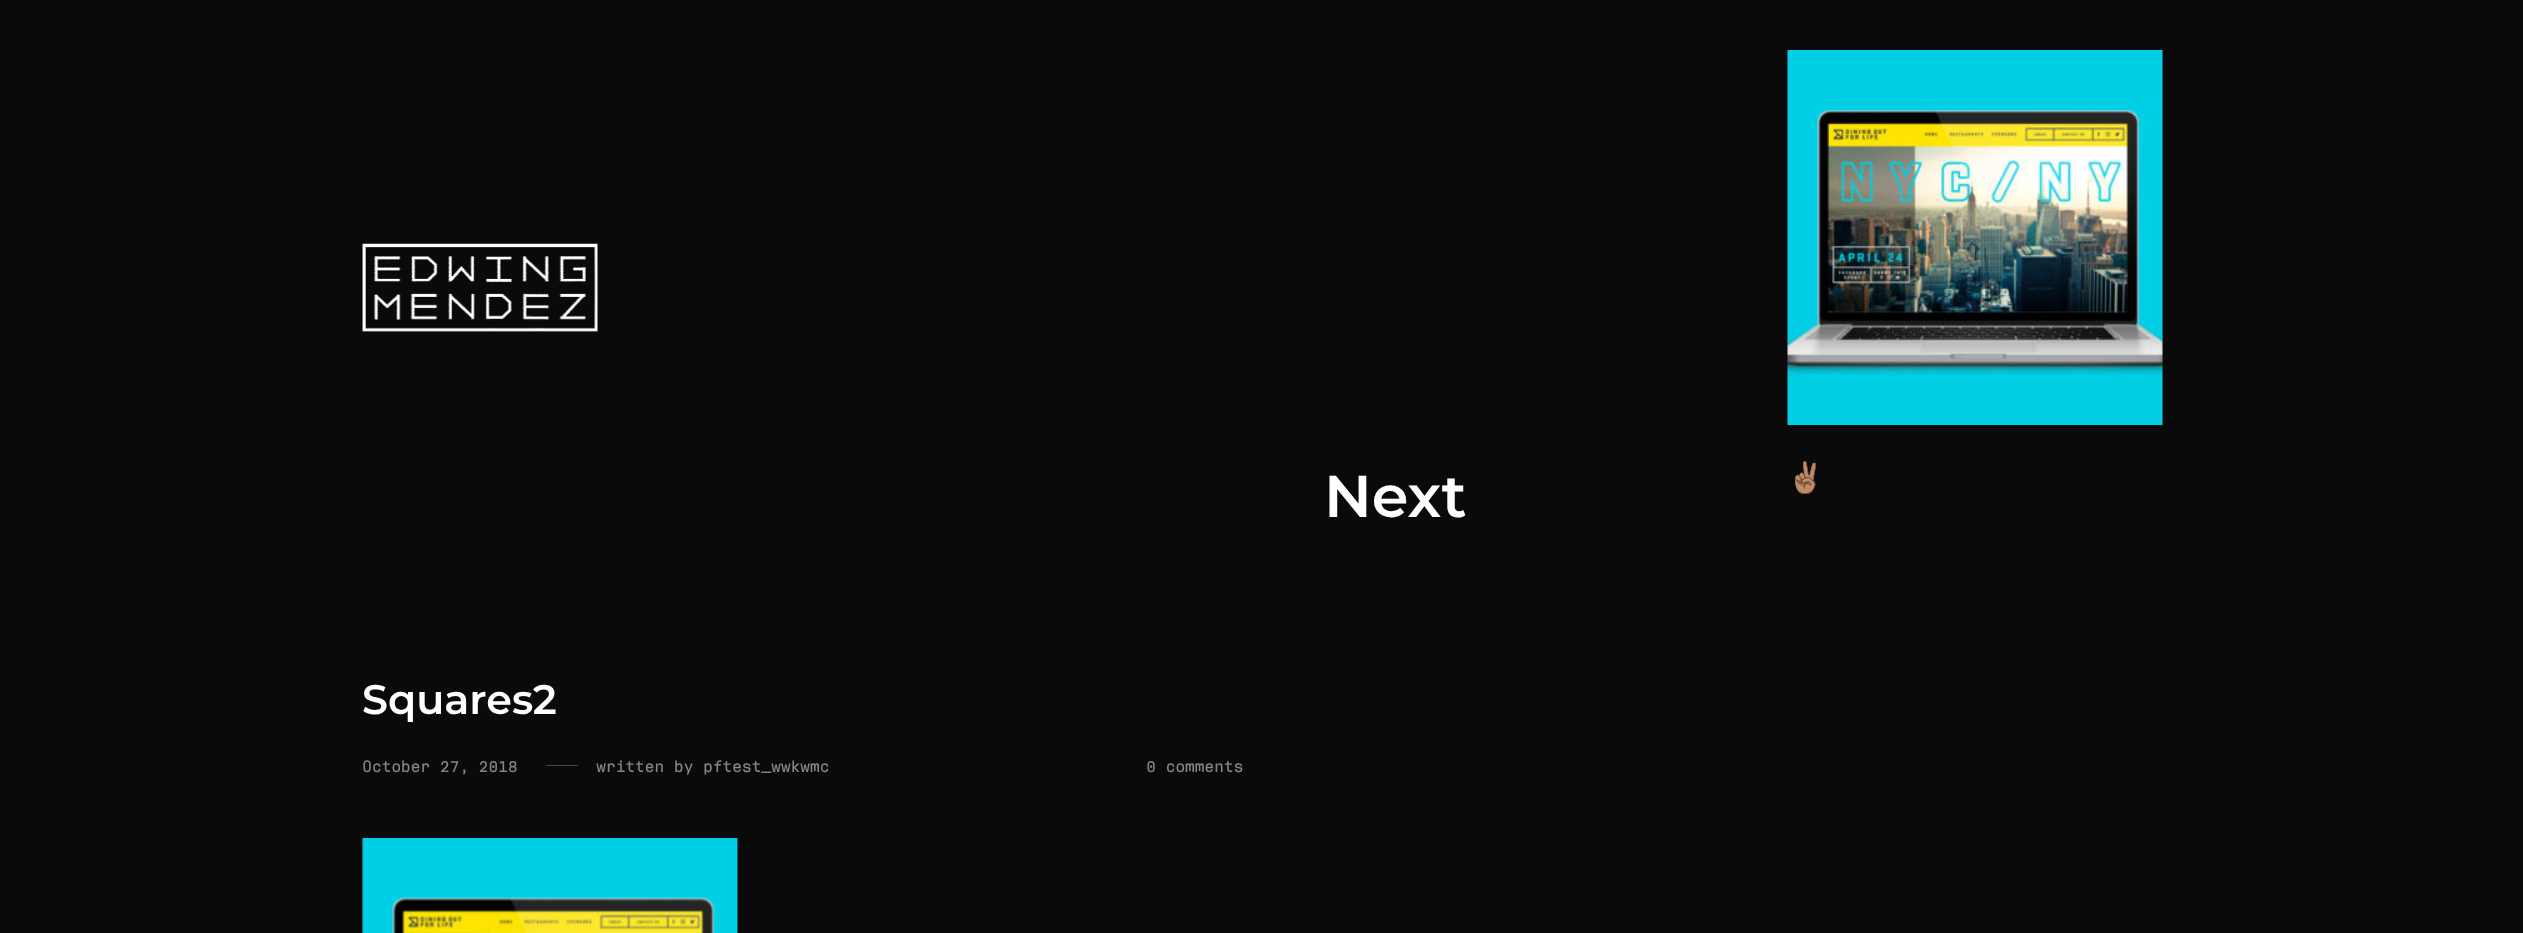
<svg xmlns="http://www.w3.org/2000/svg" width="2523" height="933" viewBox="0 0 2523 933">
  <rect width="100%" height="100%" fill="rgb(10,10,10)"/>
  <text x="1324" y="517" font-family="Montserrat" font-size="59" font-weight="600" fill="rgb(255,255,255)">Next</text>
  <text x="362" y="714" font-family="Montserrat" font-size="41.25" font-weight="600" fill="rgb(255,255,255)">Squares2</text>
  <text x="362" y="772" font-family="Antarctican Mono" font-size="16.25" font-weight="bold" fill="rgb(133,133,133)">October 27, 2018</text>
  <rect x="546" y="765" width="32" height="1" fill="rgb(71,71,71)"/>
  <g font-family="Antarctican Mono" font-size="16.25" font-weight="bold" fill="rgb(133,133,133)">
    <text x="596" y="772">written by pftest_wwkwmc</text>
    <text x="1146" y="772">0 comments</text>
  </g>
  <image x="362" y="838" width="376" height="95" href="pic1.png"/>
  <image x="362" y="243" width="236" height="89" href="pic2.png"/>
  <image x="1787" y="50" width="376" height="375" href="pic3.png"/>
  <text x="1787" y="488" font-family="Noto Color Emoji" font-size="30" fill="rgb(255,255,255)">✌🏽</text>
</svg>
